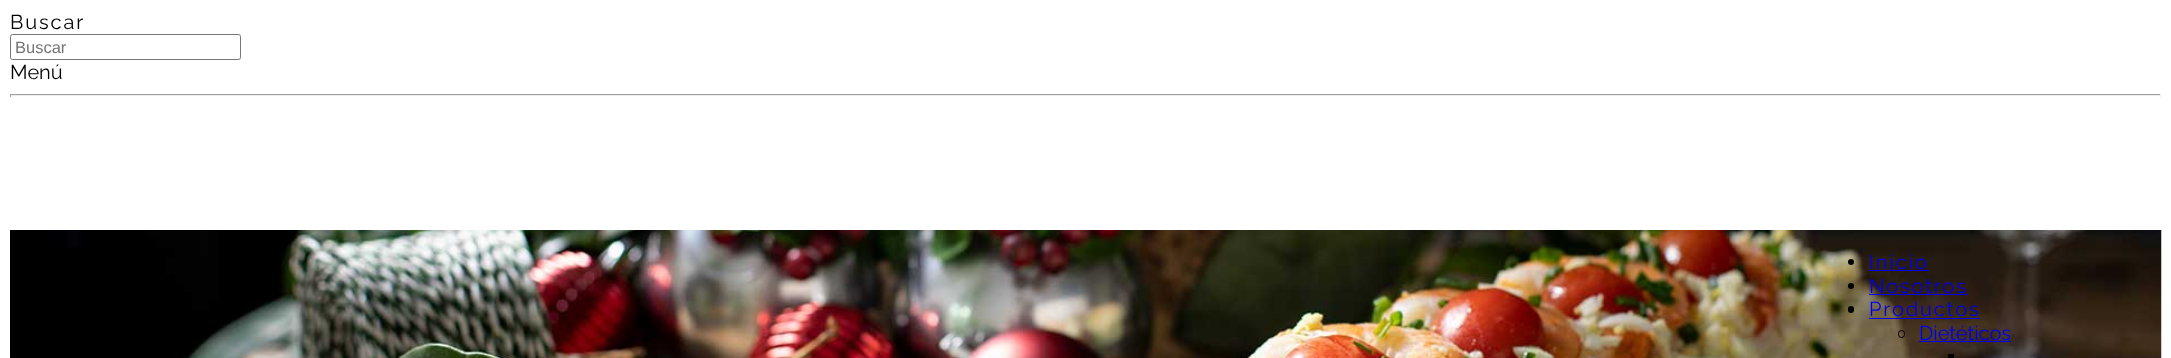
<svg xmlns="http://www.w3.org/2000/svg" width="2171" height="358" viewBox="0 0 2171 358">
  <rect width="100%" height="100%" fill="rgb(255,255,255)"/>
  <text x="10" y="29" font-family="Raleway" font-size="20" letter-spacing="1.9" fill="rgb(0,0,0)">Buscar</text>
  <rect x="10.5" y="34.5" width="230" height="25" rx="2" fill="none" stroke="rgb(118,118,118)"/>
  <text x="15" y="53" font-family="Liberation Sans" font-size="16.5" fill="rgb(117,117,117)">Buscar</text>
  <text x="10" y="79" font-family="Raleway" font-size="20" fill="rgb(0,0,0)">Menú</text>
  <rect x="10" y="94" width="2151" height="1" fill="rgb(159,159,159)"/>
  <rect x="2160" y="94" width="1" height="3" fill="rgb(238,238,238)"/>
  <rect x="10" y="95" width="2151" height="1" fill="rgb(238,238,238)"/>
  <rect x="10" y="94" width="1" height="3" fill="rgb(159,159,159)"/>
  <image x="10" y="230" width="2152" height="128" href="pic1.png"/>
  <circle cx="1851" cy="262" r="3" fill="rgb(0,0,0)"/>
  <text x="1869" y="269" font-family="Raleway" font-size="20" letter-spacing="1.9" fill="rgb(0,0,238)">Inicio</text>
  <rect x="1869" y="270" width="60" height="1" fill="rgb(0,0,238)"/>
  <circle cx="1851" cy="286" r="3" fill="rgb(0,0,0)"/>
  <text x="1869" y="293" font-family="Raleway" font-size="20" letter-spacing="1.9" fill="rgb(0,0,238)">Nosotros</text>
  <rect x="1869" y="294" width="99" height="1" fill="rgb(0,0,238)"/>
  <rect x="1848" y="306" width="6" height="7" rx="3" fill="rgb(0,0,0)"/>
  <text x="1869" y="316" font-family="Raleway" font-size="20" letter-spacing="1.9" fill="rgb(0,0,238)">Productos</text>
  <rect x="1869" y="318" width="111" height="1" fill="rgb(0,0,238)"/>
  <rect x="1898.5" y="330.5" width="6" height="7" rx="3" fill="none" stroke="rgb(0,0,0)"/>
  <text x="1919" y="340" font-family="Raleway" font-size="20" fill="rgb(0,0,238)">Dietéticos</text>
  <rect x="1919" y="341" width="92" height="1" fill="rgb(0,0,238)"/>
  <rect x="1948" y="354" width="6" height="4" fill="rgb(0,0,0)"/>
</svg>
